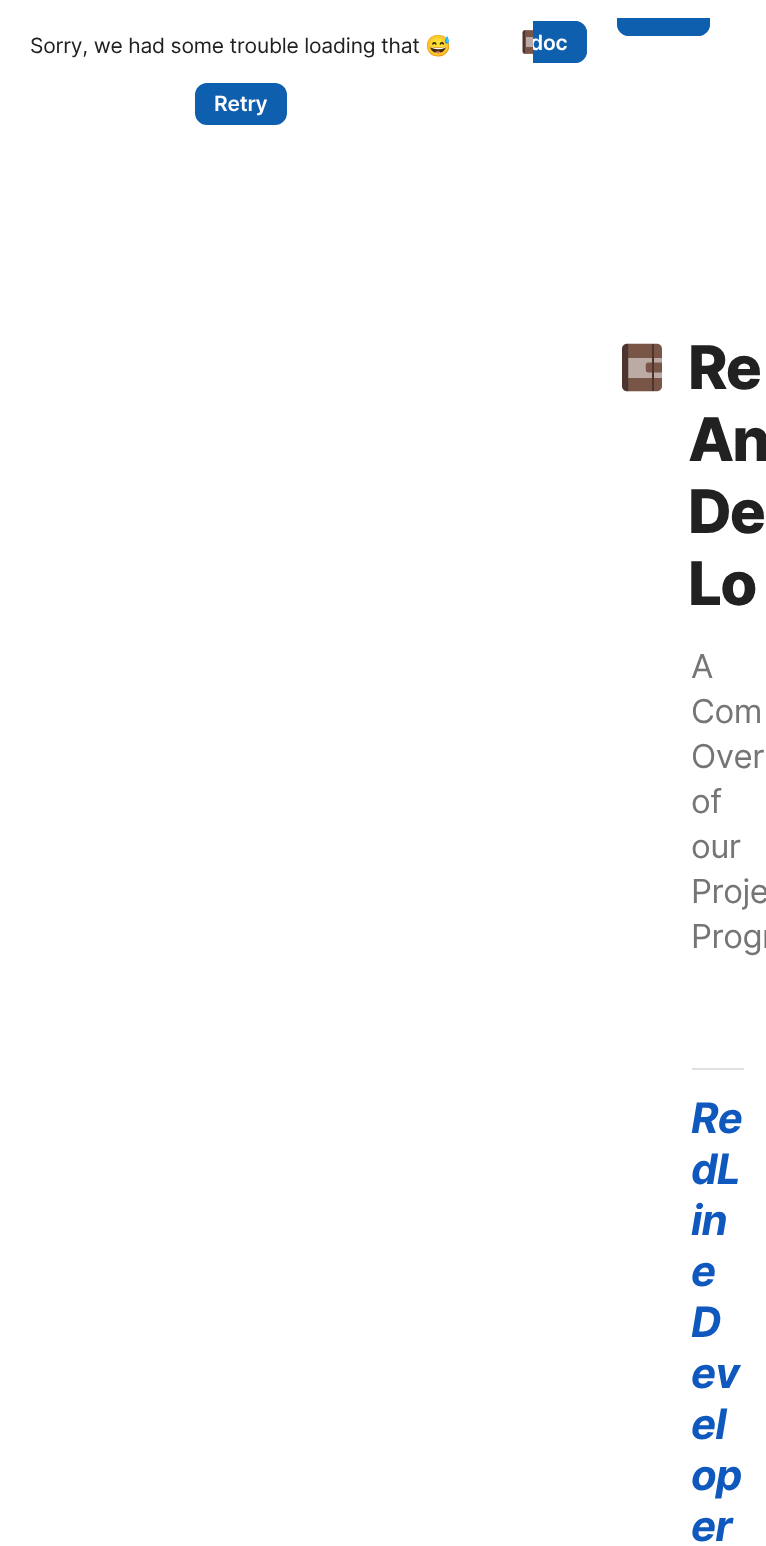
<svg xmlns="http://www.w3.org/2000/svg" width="766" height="1546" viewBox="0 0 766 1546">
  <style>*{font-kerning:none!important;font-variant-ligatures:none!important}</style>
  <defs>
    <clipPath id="clip1"><rect x="533" y="18" width="207" height="48"/></clipPath>
  </defs>
  <rect width="100%" height="100%" fill="rgb(255,255,255)"/>
  <text x="30" y="53" font-family="Inter" font-size="21" letter-spacing="-0.2" fill="rgb(33,33,33)">Sorry, we had some trouble loading that</text>
  <text x="425" y="53" font-family="Noto Color Emoji" font-size="21" letter-spacing="-0.2" fill="rgb(33,33,33)">😅</text>
  <rect x="196" y="84" width="90" height="40" rx="11" fill="rgb(15,95,175)" stroke="rgb(15,95,175)" stroke-width="2"/>
  <text x="214" y="111" font-family="Inter" font-size="21" font-weight="600" letter-spacing="-0.2" fill="rgb(255,255,255)">Retry</text>
  <image x="522" y="30" width="11" height="24" href="pic1.png"/>
  <path d="M617 18H710V24C710 30.5 704.5 36 698 36H629C622.5 36 617 30.5 617 24Z" fill="rgb(15,95,175)"/>
  <g clip-path="url(#clip1)">
    <rect x="618" y="-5" width="91" height="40" rx="11" fill="none" stroke="rgb(15,95,175)" stroke-width="2"/>
  </g>
  <path d="M533 21H575C581.5 21 587 26.5 587 33V51C587 57.5 581.5 63 575 63H533Z" fill="rgb(15,95,175)"/>
  <g clip-path="url(#clip1)">
    <rect x="454" y="22" width="132" height="40" rx="11" fill="none" stroke="rgb(15,95,175)" stroke-width="2"/>
    <text x="530" y="50" font-family="Inter" font-size="21" font-weight="600" letter-spacing="-0.2" fill="rgb(255,255,255)">doc</text>
  </g>
  <image x="622" y="343" width="40" height="49" href="pic2.png"/>
  <g font-family="Inter" font-size="60" font-weight="800" letter-spacing="-2" fill="rgb(33,33,33)">
    <text>
      <tspan x="688" y="389">Re</tspan>
      <tspan x="688" y="461">An</tspan>
      <tspan x="688" y="533">De</tspan>
      <tspan x="688" y="605">Lo</tspan>
    </text>
  </g>
  <g font-family="Inter" font-size="33" letter-spacing="-0.5" fill="rgb(117,117,117)">
    <text>
      <tspan x="691" y="678">A</tspan>
      <tspan x="691" y="723">Com</tspan>
      <tspan x="691" y="768">Over</tspan>
      <tspan x="691" y="813">of</tspan>
      <tspan x="691" y="858">our</tspan>
      <tspan x="691" y="903">Proje</tspan>
      <tspan x="691" y="948">Progr</tspan>
    </text>
  </g>
  <rect x="692" y="1068" width="52" height="2" fill="rgb(224,224,224)"/>
  <g font-family="Inter" font-size="42" font-weight="bold" font-style="italic" letter-spacing="-1" fill="rgb(15,88,189)">
    <text>
      <tspan x="691" y="1133">Re</tspan>
      <tspan x="691" y="1184">dL</tspan>
      <tspan x="691" y="1235">in</tspan>
      <tspan x="691" y="1286">e</tspan>
      <tspan x="691" y="1337">D</tspan>
      <tspan x="691" y="1388">ev</tspan>
      <tspan x="691" y="1439">el</tspan>
      <tspan x="691" y="1490">op</tspan>
      <tspan x="691" y="1541">er</tspan>
    </text>
  </g>
</svg>
